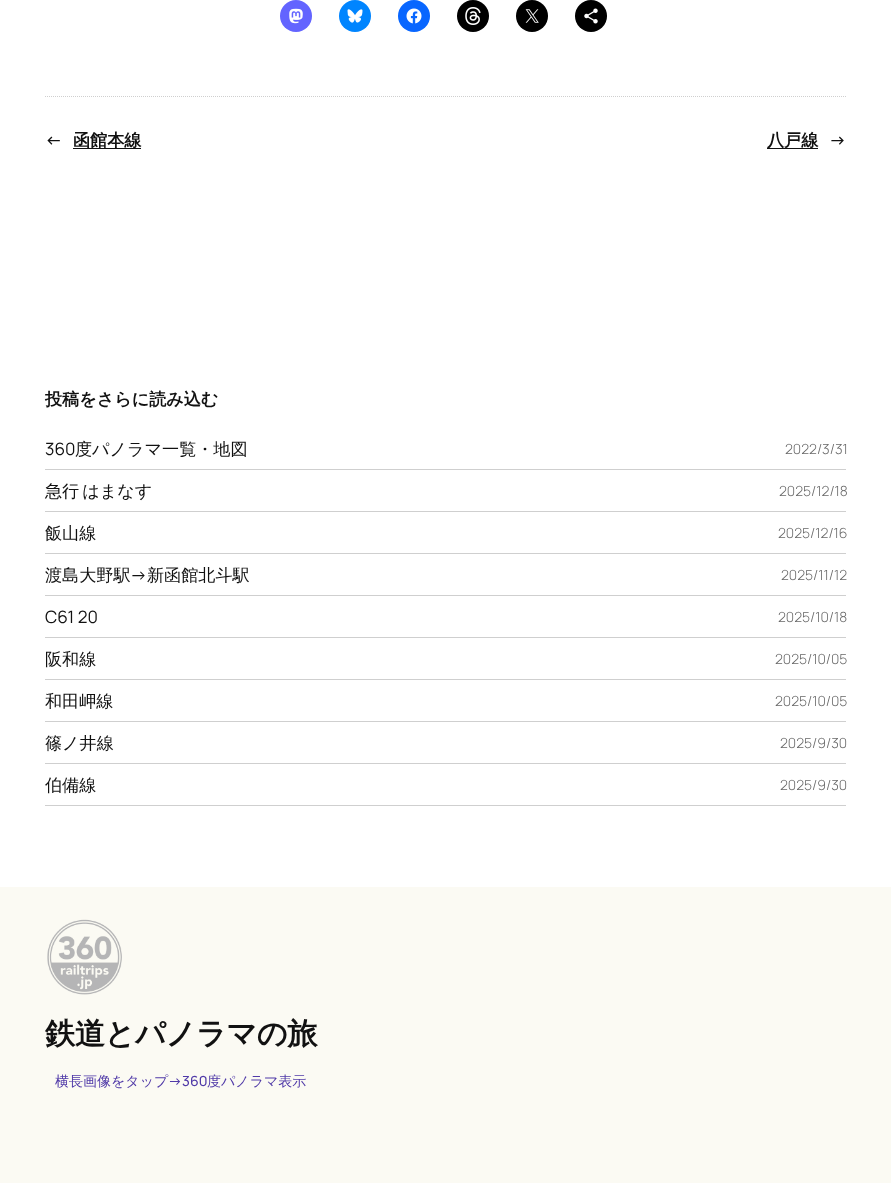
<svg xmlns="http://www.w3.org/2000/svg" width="891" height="1183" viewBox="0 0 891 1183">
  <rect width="100%" height="100%" fill="rgb(255,255,255)"/>
  <circle cx="296" cy="16" r="16" fill="rgb(99,100,255)"/>
  <image x="289" y="8" width="14" height="16" href="pic1.png"/>
  <circle cx="355" cy="16" r="16" fill="rgb(0,133,255)"/>
  <image x="347" y="9" width="16" height="14" href="pic2.png"/>
  <circle cx="414" cy="16" r="16" fill="rgb(8,102,255)"/>
  <image x="406" y="8" width="16" height="16" href="pic3.png"/>
  <circle cx="473" cy="16" r="16" fill="rgb(0,0,0)"/>
  <image x="465" y="7" width="16" height="18" href="pic4.png"/>
  <circle cx="532" cy="16" r="16" fill="rgb(0,0,0)"/>
  <image x="525" y="9" width="14" height="14" href="pic5.png"/>
  <circle cx="591" cy="16" r="16" fill="rgb(0,0,0)"/>
  <image x="584" y="8" width="14" height="16" href="pic6.png"/>
  <path d="M45 96.5H846" fill="none" stroke="rgb(207,207,207)" stroke-dasharray="1 1"/>
  <text x="45" y="146" font-family="Manrope" font-size="17.1" font-weight="600" fill="rgb(17,17,17)">←</text>
  <rect x="73" y="148" width="68" height="1" fill="rgb(17,17,17)"/>
  <text x="73" y="146" font-family="WenQuanYi Zen Hei" font-size="17.1" font-weight="bold" fill="rgb(17,17,17)">函館本線</text>
  <rect x="767" y="148" width="51" height="1" fill="rgb(17,17,17)"/>
  <text x="767" y="146" font-family="WenQuanYi Zen Hei" font-size="17.1" font-weight="bold" fill="rgb(17,17,17)">八戸線</text>
  <text x="829" y="146" font-family="Manrope" font-size="17.1" font-weight="600" fill="rgb(17,17,17)">→</text>
  <text x="45" y="405" font-family="WenQuanYi Zen Hei" font-size="17.1" font-weight="bold" fill="rgb(17,17,17)">投稿をさらに読み込む</text>
  <rect x="45" y="469" width="801" height="1" fill="rgb(207,207,207)"/>
  <text x="45" y="455" font-family="Manrope" font-size="17.1" fill="rgb(17,17,17)">360</text>
  <text x="75" y="455" font-family="WenQuanYi Zen Hei" font-size="17.1" font-weight="500" fill="rgb(17,17,17)">度パノラマ一覧・地図</text>
  <text x="785" y="454" font-family="Manrope" font-size="14" font-weight="300" fill="rgb(104,104,104)">2022/3/31</text>
  <rect x="45" y="511" width="801" height="1" fill="rgb(207,207,207)"/>
  <text x="45" y="497" word-spacing="-2" font-family="WenQuanYi Zen Hei" font-size="17.1" font-weight="500" fill="rgb(17,17,17)">急行 はまなす</text>
  <text x="779" y="496" font-family="Manrope" font-size="14" font-weight="300" fill="rgb(104,104,104)">2025/12/18</text>
  <rect x="45" y="553" width="801" height="1" fill="rgb(207,207,207)"/>
  <text x="45" y="539" font-family="WenQuanYi Zen Hei" font-size="17.1" font-weight="500" fill="rgb(17,17,17)">飯山線</text>
  <text x="778" y="538" font-family="Manrope" font-size="14" font-weight="300" fill="rgb(104,104,104)">2025/12/16</text>
  <rect x="45" y="595" width="801" height="1" fill="rgb(207,207,207)"/>
  <text x="45" y="581" font-family="WenQuanYi Zen Hei" font-size="17.1" font-weight="500" fill="rgb(17,17,17)">渡島大野駅</text>
  <text x="130" y="581" font-family="Manrope" font-size="17.1" fill="rgb(17,17,17)">→</text>
  <text x="147" y="581" font-family="WenQuanYi Zen Hei" font-size="17.1" font-weight="500" fill="rgb(17,17,17)">新函館北斗駅</text>
  <text x="781" y="580" font-family="Manrope" font-size="14" font-weight="300" fill="rgb(104,104,104)">2025/11/12</text>
  <rect x="45" y="637" width="801" height="1" fill="rgb(207,207,207)"/>
  <text x="45" y="623" font-family="Manrope" font-size="17.1" fill="rgb(17,17,17)">C61 20</text>
  <text x="778" y="622" font-family="Manrope" font-size="14" font-weight="300" fill="rgb(104,104,104)">2025/10/18</text>
  <rect x="45" y="679" width="801" height="1" fill="rgb(207,207,207)"/>
  <text x="45" y="665" font-family="WenQuanYi Zen Hei" font-size="17.1" font-weight="500" fill="rgb(17,17,17)">阪和線</text>
  <text x="775" y="664" font-family="Manrope" font-size="14" font-weight="300" fill="rgb(104,104,104)">2025/10/05</text>
  <rect x="45" y="721" width="801" height="1" fill="rgb(207,207,207)"/>
  <text x="45" y="707" font-family="WenQuanYi Zen Hei" font-size="17.1" font-weight="500" fill="rgb(17,17,17)">和田岬線</text>
  <text x="775" y="706" font-family="Manrope" font-size="14" font-weight="300" fill="rgb(104,104,104)">2025/10/05</text>
  <rect x="45" y="763" width="801" height="1" fill="rgb(207,207,207)"/>
  <text x="45" y="749" font-family="WenQuanYi Zen Hei" font-size="17.1" font-weight="500" fill="rgb(17,17,17)">篠ノ井線</text>
  <text x="780" y="748" font-family="Manrope" font-size="14" font-weight="300" fill="rgb(104,104,104)">2025/9/30</text>
  <rect x="45" y="805" width="801" height="1" fill="rgb(207,207,207)"/>
  <text x="45" y="791" font-family="WenQuanYi Zen Hei" font-size="17.1" font-weight="500" fill="rgb(17,17,17)">伯備線</text>
  <text x="780" y="790" font-family="Manrope" font-size="14" font-weight="300" fill="rgb(104,104,104)">2025/9/30</text>
  <rect x="0" y="887" width="891" height="296" fill="rgb(251,250,243)"/>
  <image x="47" y="919" width="75" height="76" href="pic7.png"/>
  <text x="45" y="1044" font-family="WenQuanYi Zen Hei" font-size="30.25" font-weight="bold" letter-spacing="-0.5" fill="rgb(17,17,17)">鉄道とパノラマの旅</text>
  <text x="55" y="1086" font-family="WenQuanYi Zen Hei" font-size="14" font-weight="500" fill="rgb(80,58,168)">横長画像をタップ</text>
  <text x="168" y="1086" font-family="Manrope" font-size="14" font-weight="500" fill="rgb(80,58,168)">→360</text>
  <text x="207" y="1086" font-family="WenQuanYi Zen Hei" font-size="14" font-weight="500" fill="rgb(80,58,168)">度パノラマ表示</text>
</svg>
